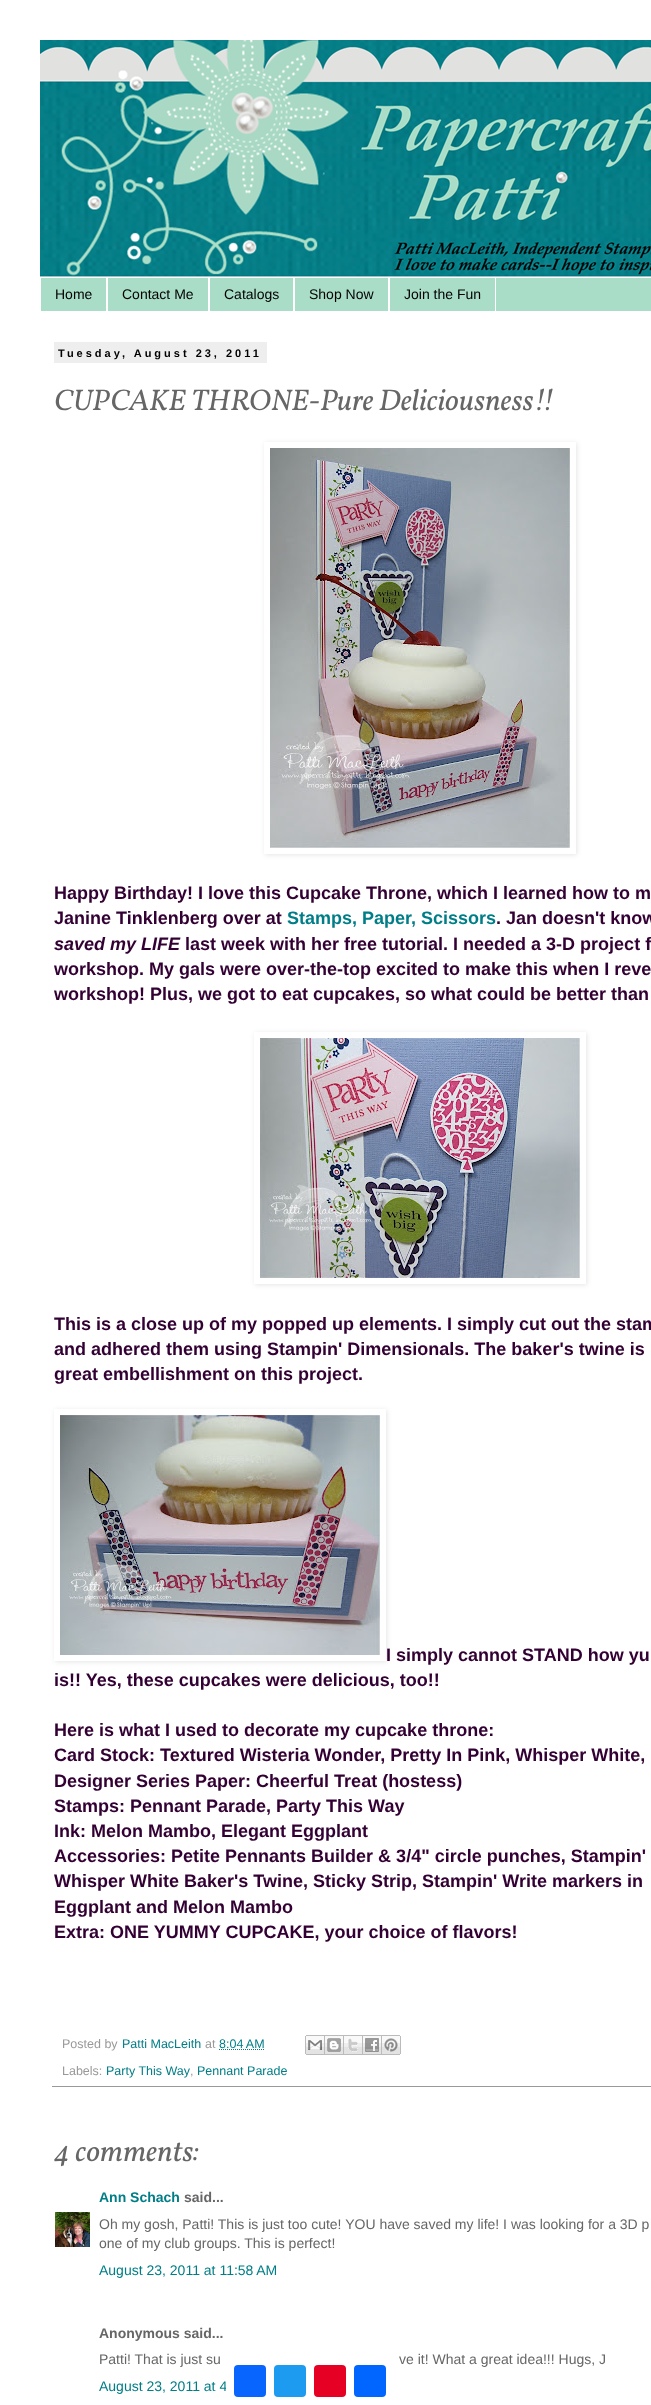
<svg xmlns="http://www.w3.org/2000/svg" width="651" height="2405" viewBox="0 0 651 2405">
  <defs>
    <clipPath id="clip1"><path d="M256 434H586V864H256ZM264 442H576V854H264Z" clip-rule="evenodd"/></clipPath>
    <clipPath id="clip2"><path d="M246 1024H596V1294H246ZM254 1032H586V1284H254Z" clip-rule="evenodd"/></clipPath>
    <clipPath id="clip3"><path d="M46 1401H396V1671H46ZM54 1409H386V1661H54Z" clip-rule="evenodd"/></clipPath>
  </defs>
  <rect width="100%" height="100%" fill="rgb(255,255,255)"/>
  <image x="40" y="40" width="611" height="237" href="pic1.png"/>
  <rect x="41" y="278" width="610" height="33" fill="rgb(169,221,199)"/>
  <rect x="106" y="278" width="2" height="33" fill="rgb(255,255,255)"/>
  <text x="55" y="299" font-family="Liberation Sans" font-size="14" fill="rgb(0,0,0)">Home</text>
  <rect x="208" y="278" width="2" height="33" fill="rgb(255,255,255)"/>
  <text x="122" y="299" font-family="Liberation Sans" font-size="14" fill="rgb(0,0,0)">Contact Me</text>
  <rect x="293" y="278" width="2" height="33" fill="rgb(255,255,255)"/>
  <text x="224" y="299" font-family="Liberation Sans" font-size="14" fill="rgb(0,0,0)">Catalogs</text>
  <rect x="388" y="278" width="2" height="33" fill="rgb(255,255,255)"/>
  <text x="309" y="299" font-family="Liberation Sans" font-size="14" fill="rgb(0,0,0)">Shop Now</text>
  <rect x="495" y="278" width="1" height="33" fill="rgb(255,255,255)"/>
  <text x="404" y="299" font-family="Liberation Sans" font-size="14" fill="rgb(0,0,0)">Join the Fun</text>
  <rect x="54" y="342" width="213" height="21" fill="rgb(238,238,238)"/>
  <text x="58" y="357" font-family="Liberation Sans" font-size="11" font-weight="bold" letter-spacing="3" fill="rgb(0,0,0)">Tuesday, August 23, 2011</text>
  <text x="54" y="410" font-family="Vollkorn" font-size="30" font-style="italic" fill="rgb(102,102,102)">CUPCAKE THRONE-Pure Deliciousness!!</text>
  <g clip-path="url(#clip1)">
    <rect x="265" y="443" width="312" height="412" fill="rgba(0,0,0,0.1)" filter="blur(2.5px)"/>
  </g>
  <image x="270" y="448" width="300" height="400" href="pic2.png"/>
  <g font-family="Liberation Sans" font-size="18" font-weight="bold" fill="rgb(51,0,51)">
    <text>
      <tspan x="54" y="899">Happy Birthday! I love this Cupcake Throne, which I learned how to m</tspan>
      <tspan x="54" y="924">Janine Tinklenberg over at</tspan>
    </text>
  </g>
  <text x="287" y="924" font-family="Liberation Sans" font-size="18" font-weight="bold" fill="rgb(0,126,135)">Stamps, Paper, Scissors</text>
  <text x="496" y="924" font-family="Liberation Sans" font-size="18" font-weight="bold" fill="rgb(51,0,51)">. Jan doesn't know</text>
  <text x="54" y="950" font-family="Liberation Sans" font-size="18" font-weight="bold" font-style="italic" fill="rgb(51,0,51)">saved my LIFE</text>
  <g font-family="Liberation Sans" font-size="18" font-weight="bold" fill="rgb(51,0,51)">
    <text x="185" y="950">last week with her free tutorial. I needed a 3-D project f</text>
    <text>
      <tspan x="54" y="975">workshop. My gals were over-the-top excited to make this when I reve</tspan>
      <tspan x="54" y="1000">workshop! Plus, we got to eat cupcakes, so what could be better than</tspan>
    </text>
  </g>
  <g clip-path="url(#clip2)">
    <rect x="255" y="1033" width="332" height="252" fill="rgba(0,0,0,0.1)" filter="blur(2.5px)"/>
  </g>
  <image x="260" y="1038" width="320" height="240" href="pic3.png"/>
  <g font-family="Liberation Sans" font-size="18" font-weight="bold" fill="rgb(51,0,51)">
    <text>
      <tspan x="54" y="1330">This is a close up of my popped up elements. I simply cut out the stam</tspan>
      <tspan x="54" y="1355">and adhered them using Stampin' Dimensionals. The baker's twine is</tspan>
      <tspan x="54" y="1380">great embellishment on this project.</tspan>
    </text>
  </g>
  <g clip-path="url(#clip3)">
    <rect x="55" y="1410" width="332" height="252" fill="rgba(0,0,0,0.1)" filter="blur(2.5px)"/>
  </g>
  <image x="60" y="1415" width="320" height="240" href="pic4.png"/>
  <g font-family="Liberation Sans" font-size="18" font-weight="bold" fill="rgb(51,0,51)">
    <text x="386" y="1661">I simply cannot STAND how yu</text>
    <text x="54" y="1686">is!! Yes, these cupcakes were delicious, too!!</text>
    <text>
      <tspan x="54" y="1736">Here is what I used to decorate my cupcake throne:</tspan>
      <tspan x="54" y="1761">Card Stock: Textured Wisteria Wonder, Pretty In Pink, Whisper White,</tspan>
      <tspan x="54" y="1787">Designer Series Paper: Cheerful Treat (hostess)</tspan>
      <tspan x="54" y="1812">Stamps: Pennant Parade, Party This Way</tspan>
      <tspan x="54" y="1837">Ink: Melon Mambo, Elegant Eggplant</tspan>
      <tspan x="54" y="1862">Accessories: Petite Pennants Builder &amp; 3/4" circle punches, Stampin'</tspan>
      <tspan x="54" y="1887">Whisper White Baker's Twine, Sticky Strip, Stampin' Write markers in</tspan>
      <tspan x="54" y="1913">Eggplant and Melon Mambo</tspan>
      <tspan x="54" y="1938">Extra: ONE YUMMY CUPCAKE, your choice of flavors!</tspan>
    </text>
  </g>
  <rect x="52" y="2086" width="599" height="1" fill="rgb(153,153,153)"/>
  <text x="62" y="2048" font-family="Liberation Sans" font-size="12.5" fill="rgb(153,153,153)">Posted by</text>
  <text x="122" y="2048" font-family="Liberation Sans" font-size="12.5" fill="rgb(0,126,135)">Patti MacLeith</text>
  <text x="205" y="2048" font-family="Liberation Sans" font-size="12.5" fill="rgb(153,153,153)">at</text>
  <text x="219" y="2048" font-family="Liberation Sans" font-size="12.5" fill="rgb(0,126,135)">8:04 AM</text>
  <path d="M219 2049.5H265" fill="none" stroke="rgb(0,126,135)" stroke-dasharray="1 1"/>
  <image x="305" y="2035" width="20" height="20" href="pic5.png"/>
  <image x="325" y="2035" width="19" height="20" href="pic6.png"/>
  <image x="344" y="2035" width="19" height="20" href="pic7.png"/>
  <image x="363" y="2035" width="19" height="20" href="pic8.png"/>
  <image x="382" y="2035" width="19" height="20" href="pic9.png"/>
  <text x="62" y="2075" font-family="Liberation Sans" font-size="12.5" fill="rgb(153,153,153)">Labels:</text>
  <text x="106" y="2075" font-family="Liberation Sans" font-size="12.5" fill="rgb(0,126,135)">Party This Way</text>
  <text x="190" y="2075" font-family="Liberation Sans" font-size="12.5" fill="rgb(153,153,153)">,</text>
  <text x="197" y="2075" font-family="Liberation Sans" font-size="12.5" fill="rgb(0,126,135)">Pennant Parade</text>
  <text x="54" y="2161" font-family="Vollkorn" font-size="30" font-style="italic" fill="rgb(102,102,102)">4 comments:</text>
  <text x="99" y="2202" font-family="Liberation Sans" font-size="14" font-weight="bold" fill="rgb(0,126,135)">Ann Schach</text>
  <text x="184" y="2202" font-family="Liberation Sans" font-size="14" font-weight="bold" fill="rgb(102,102,102)">said...</text>
  <image x="55" y="2212" width="35" height="35" href="pic10.png"/>
  <g font-family="Liberation Sans" font-size="14" fill="rgb(102,102,102)">
    <text>
      <tspan x="99" y="2229">Oh my gosh, Patti! This is just too cute! YOU have saved my life! I was looking for a 3D p</tspan>
      <tspan x="99" y="2248">one of my club groups. This is perfect!</tspan>
    </text>
  </g>
  <text x="99" y="2275" font-family="Liberation Sans" font-size="14" fill="rgb(0,126,135)">August 23, 2011 at 11:58 AM</text>
  <text x="99" y="2338" font-family="Liberation Sans" font-size="14" font-weight="bold" fill="rgb(102,102,102)">Anonymous said...</text>
  <g font-family="Liberation Sans" font-size="14" fill="rgb(102,102,102)">
    <text x="99" y="2364">Patti! That is just su</text>
    <text x="399" y="2364">ve it! What a great idea!!! Hugs, J</text>
  </g>
  <text x="99" y="2391" font-family="Liberation Sans" font-size="14" fill="rgb(0,126,135)">August 23, 2011 at 4</text>
  <rect x="226" y="2357" width="168" height="48" rx="6" fill="rgb(255,255,255)"/>
  <rect x="234" y="2365" width="32" height="32" rx="4" fill="rgb(8,102,255)"/>
  <rect x="274" y="2365" width="32" height="32" rx="4" fill="rgb(29,155,240)"/>
  <rect x="314" y="2365" width="32" height="32" rx="4" fill="rgb(230,0,35)"/>
  <rect x="354" y="2365" width="32" height="32" rx="4" fill="rgb(1,102,255)"/>
</svg>
